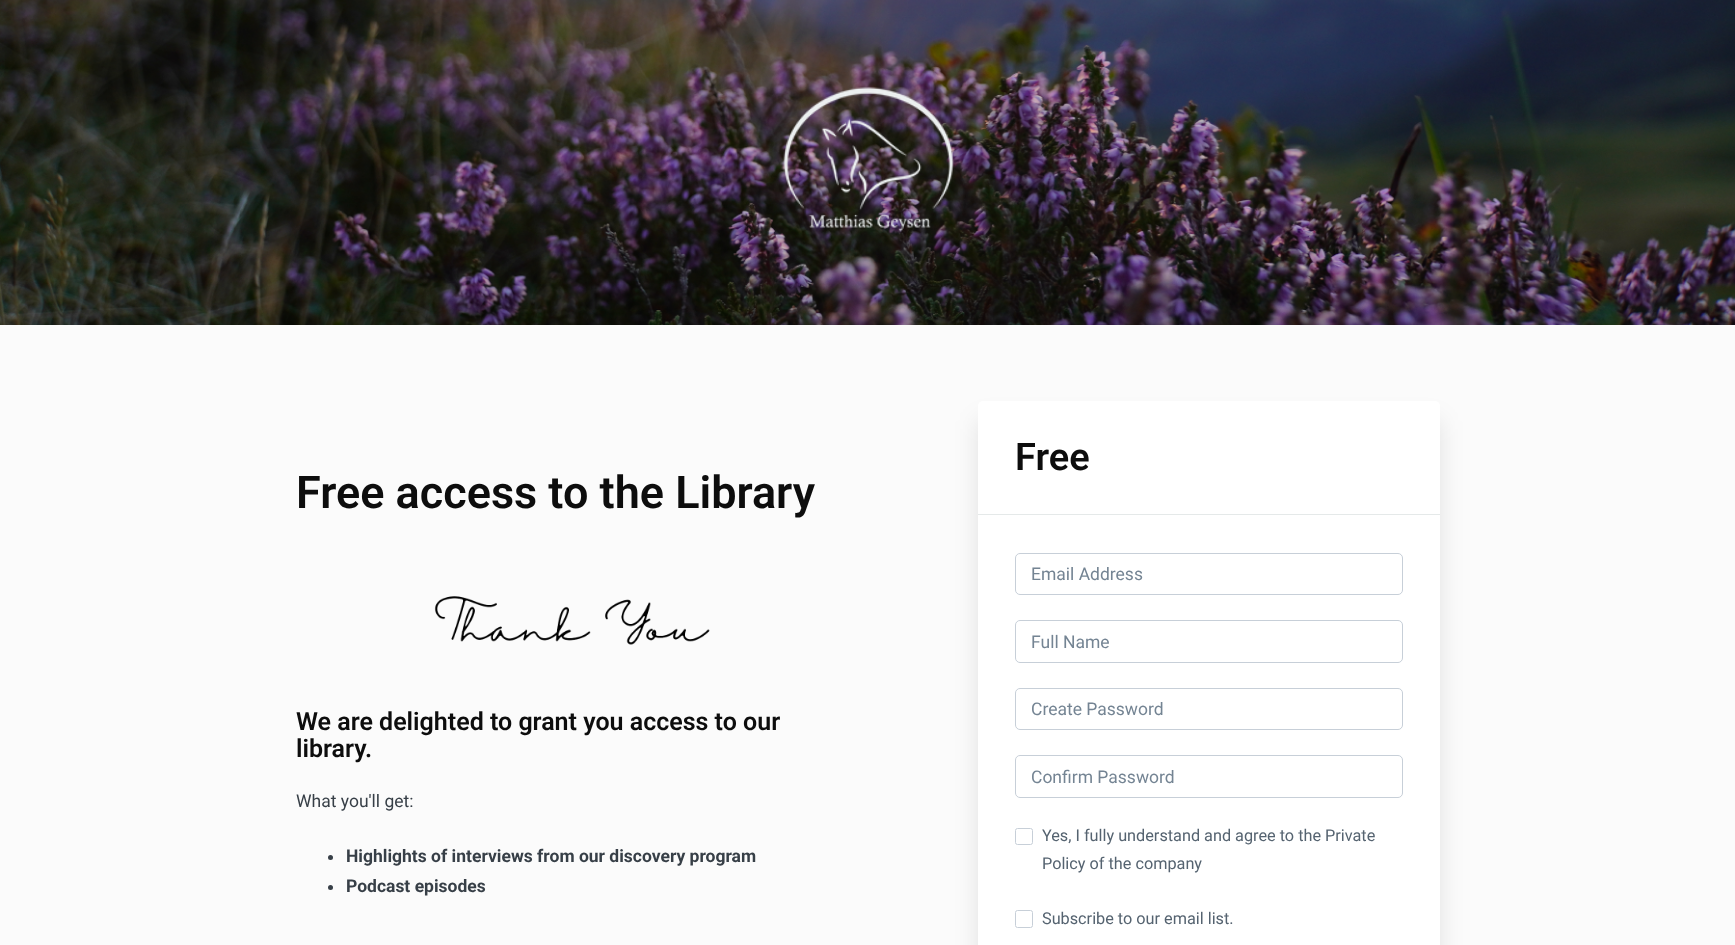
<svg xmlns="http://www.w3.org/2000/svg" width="1735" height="945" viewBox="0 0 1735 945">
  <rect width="100%" height="100%" fill="rgb(251,251,251)"/>
  <image x="0" y="0" width="1735" height="325" href="pic1.png"/>
  <image x="783" y="87" width="171" height="145" href="pic2.png"/>
  <text x="296" y="508" font-family="Roboto" font-size="45" font-weight="600" fill="rgb(13,13,13)">Free access to the Library</text>
  <image x="434" y="596" width="276" height="49" href="pic3.png"/>
  <g font-family="Roboto" font-size="25" font-weight="600" fill="rgb(13,13,13)">
    <text>
      <tspan x="296" y="730">We are delighted to grant you access to our</tspan>
      <tspan x="296" y="757">library.</tspan>
    </text>
  </g>
  <text x="296" y="807" font-family="Roboto" font-size="17.5" fill="rgb(55,63,71)">What you'll get:</text>
  <circle cx="330.5" cy="857.5" r="2.5" fill="rgb(55,63,71)"/>
  <text x="346" y="862" font-family="Roboto" font-size="17.5" font-weight="bold" fill="rgb(55,63,71)">Highlights of interviews from our discovery program</text>
  <circle cx="330.5" cy="887.5" r="2.5" fill="rgb(55,63,71)"/>
  <text x="346" y="892" font-family="Roboto" font-size="17.5" font-weight="bold" fill="rgb(55,63,71)">Podcast episodes</text>
  <rect x="978" y="420" width="462" height="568" rx="5" fill="rgba(0,0,0,0.1)" filter="blur(12.5px)"/>
  <rect x="978" y="401" width="462" height="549" rx="5" fill="rgb(255,255,255)"/>
  <rect x="978" y="514" width="462" height="1" fill="rgb(229,233,233)"/>
  <text x="1015" y="470" font-family="Roboto" font-size="38" font-weight="600" fill="rgb(13,13,13)">Free</text>
  <rect x="1015.5" y="553.5" width="387" height="41" rx="4.5" fill="none" stroke="rgb(199,207,216)"/>
  <text x="1031" y="580" font-family="Roboto" font-size="17.5" fill="rgb(116,132,147)">Email Address</text>
  <rect x="1015.5" y="620.5" width="387" height="42" rx="4.5" fill="none" stroke="rgb(199,207,216)"/>
  <text x="1031" y="648" font-family="Roboto" font-size="17.5" fill="rgb(116,132,147)">Full Name</text>
  <rect x="1015.5" y="688.5" width="387" height="41" rx="4.5" fill="none" stroke="rgb(199,207,216)"/>
  <text x="1031" y="715" font-family="Roboto" font-size="17.5" fill="rgb(116,132,147)">Create Password</text>
  <rect x="1015.5" y="755.5" width="387" height="42" rx="4.5" fill="none" stroke="rgb(199,207,216)"/>
  <text x="1031" y="783" font-family="Roboto" font-size="17.5" fill="rgb(116,132,147)">Confirm Password</text>
  <rect x="1015.5" y="828.5" width="17" height="16" rx="2" fill="none" stroke="rgb(199,207,216)"/>
  <g font-family="Roboto" font-size="16.25" fill="rgb(85,99,112)">
    <text>
      <tspan x="1042" y="841">Yes, I fully understand and agree to the Private</tspan>
      <tspan x="1042" y="869">Policy of the company</tspan>
    </text>
  </g>
  <rect x="1015.5" y="910.5" width="17" height="17" rx="2" fill="none" stroke="rgb(199,207,216)"/>
  <text x="1042" y="924" font-family="Roboto" font-size="16.25" fill="rgb(85,99,112)">Subscribe to our email list.</text>
</svg>
